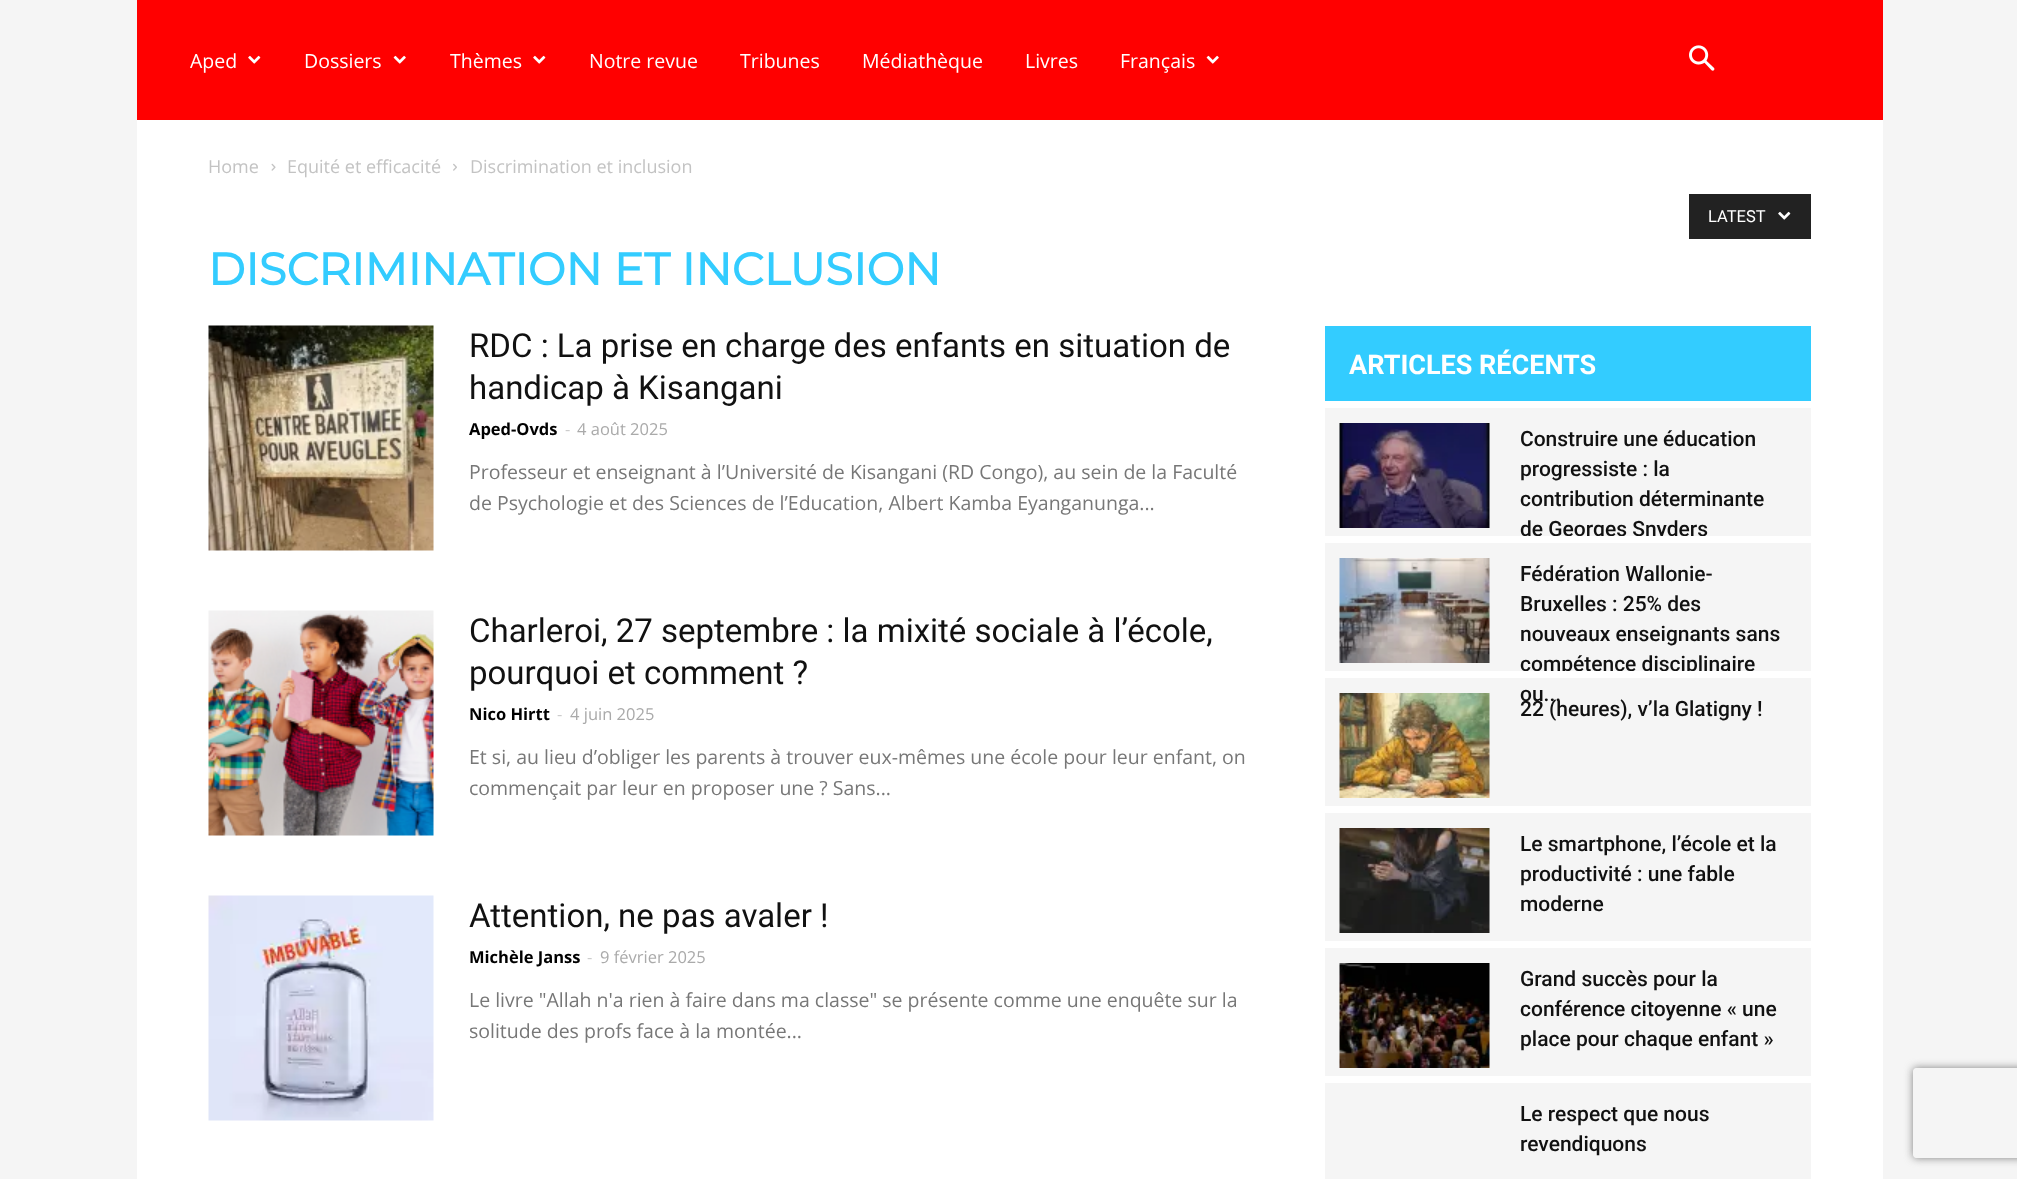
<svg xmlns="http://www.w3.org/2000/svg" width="2017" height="1179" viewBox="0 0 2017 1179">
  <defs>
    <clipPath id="clip1"><path d="M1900 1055H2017V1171H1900ZM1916 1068H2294C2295.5 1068 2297 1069.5 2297 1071V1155C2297 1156.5 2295.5 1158 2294 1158H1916C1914.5 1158 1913 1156.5 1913 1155V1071C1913 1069.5 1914.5 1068 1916 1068Z" clip-rule="evenodd"/></clipPath>
  </defs>
  <rect width="100%" height="100%" fill="rgb(245,245,245)"/>
  <rect x="137" y="0" width="1746" height="120" fill="rgb(255,0,0)"/>
  <text x="190" y="68" font-family="Open Sans" font-size="19.5" fill="rgb(255,255,255)">Aped</text>
  <image x="248" y="55" width="13" height="9" href="pic1.png"/>
  <text x="304" y="68" font-family="Open Sans" font-size="19.5" fill="rgb(255,255,255)">Dossiers</text>
  <image x="393" y="55" width="13" height="9" href="pic2.png"/>
  <text x="450" y="68" font-family="Open Sans" font-size="19.5" fill="rgb(255,255,255)">Thèmes</text>
  <image x="533" y="55" width="13" height="9" href="pic1.png"/>
  <g font-family="Open Sans" font-size="19.5" fill="rgb(255,255,255)">
    <text x="589" y="68">Notre revue</text>
    <text x="740" y="68">Tribunes</text>
    <text x="862" y="68">Médiathèque</text>
    <text x="1025" y="68">Livres</text>
    <text x="1120" y="68">Français</text>
  </g>
  <image x="1206" y="55" width="13" height="9" href="pic2.png"/>
  <image x="1689" y="45" width="26" height="26" href="pic3.png"/>
  <rect x="137" y="120" width="1746" height="1059" fill="rgb(255,255,255)"/>
  <text x="208" y="173" font-family="Open Sans" font-size="18" fill="rgb(195,195,195)">Home</text>
  <image x="271" y="163" width="5" height="8" href="pic4.png"/>
  <text x="287" y="173" font-family="Open Sans" font-size="18" fill="rgb(195,195,195)">Equité et efficacité</text>
  <image x="453" y="163" width="4" height="8" href="pic5.png"/>
  <text x="470" y="173" font-family="Open Sans" font-size="18" fill="rgb(195,195,195)">Discrimination et inclusion</text>
  <text x="208" y="285" font-family="Montserrat" font-size="45" font-weight="bold" fill="rgb(51,204,255)">DISCRIMINATION ET INCLUSION</text>
  <rect x="1689" y="194" width="122" height="45" fill="rgb(34,34,34)"/>
  <text x="1708" y="222" font-family="Roboto" font-size="16.5" fill="rgb(255,255,255)">LATEST</text>
  <image x="1778" y="211" width="13" height="9" href="pic6.png"/>
  <image x="208" y="325" width="226" height="226" href="pic7.png"/>
  <g font-family="Roboto" font-size="33" fill="rgb(17,17,17)">
    <text>
      <tspan x="469" y="357">RDC : La prise en charge des enfants en situation de</tspan>
      <tspan x="469" y="399">handicap à Kisangani</tspan>
    </text>
  </g>
  <text x="469" y="435" font-family="Open Sans" font-size="16.5" font-weight="bold" fill="rgb(0,0,0)">Aped-Ovds</text>
  <text x="565" y="435" font-family="Open Sans" font-size="16.5" fill="rgb(204,204,204)">-</text>
  <text x="577" y="435" font-family="Open Sans" font-size="16.5" fill="rgb(170,170,170)">4 août 2025</text>
  <g font-family="Open Sans" font-size="19.5" fill="rgb(119,119,119)">
    <text>
      <tspan x="469" y="479">Professeur et enseignant à l’Université de Kisangani (RD Congo), au sein de la Faculté</tspan>
      <tspan x="469" y="510">de Psychologie et des Sciences de l’Education, Albert Kamba Eyanganunga...</tspan>
    </text>
  </g>
  <image x="208" y="610" width="226" height="226" href="pic8.png"/>
  <g font-family="Roboto" font-size="33" fill="rgb(17,17,17)">
    <text>
      <tspan x="469" y="642">Charleroi, 27 septembre : la mixité sociale à l’école,</tspan>
      <tspan x="469" y="684">pourquoi et comment ?</tspan>
    </text>
  </g>
  <text x="469" y="720" font-family="Open Sans" font-size="16.5" font-weight="bold" fill="rgb(0,0,0)">Nico Hirtt</text>
  <text x="557" y="720" font-family="Open Sans" font-size="16.5" fill="rgb(204,204,204)">-</text>
  <text x="570" y="720" font-family="Open Sans" font-size="16.5" fill="rgb(170,170,170)">4 juin 2025</text>
  <g font-family="Open Sans" font-size="19.5" fill="rgb(119,119,119)">
    <text>
      <tspan x="469" y="764">Et si, au lieu d’obliger les parents à trouver eux-mêmes une école pour leur enfant, on</tspan>
      <tspan x="469" y="795">commençait par leur en proposer une ? Sans...</tspan>
    </text>
  </g>
  <image x="208" y="895" width="226" height="226" href="pic9.png"/>
  <text x="469" y="927" font-family="Roboto" font-size="33" fill="rgb(17,17,17)">Attention, ne pas avaler !</text>
  <text x="469" y="963" font-family="Open Sans" font-size="16.5" font-weight="bold" fill="rgb(0,0,0)">Michèle Janss</text>
  <text x="587" y="963" font-family="Open Sans" font-size="16.5" fill="rgb(204,204,204)">-</text>
  <text x="600" y="963" font-family="Open Sans" font-size="16.5" fill="rgb(170,170,170)">9 février 2025</text>
  <g font-family="Open Sans" font-size="19.5" fill="rgb(119,119,119)">
    <text>
      <tspan x="469" y="1007">Le livre "Allah n'a rien à faire dans ma classe" se présente comme une enquête sur la</tspan>
      <tspan x="469" y="1038">solitude des profs face à la montée...</tspan>
    </text>
  </g>
  <rect x="1325" y="408" width="486" height="771" fill="rgb(245,245,245)"/>
  <rect x="1325" y="326" width="486" height="75" fill="rgb(51,204,255)"/>
  <text x="1349" y="374" font-family="Roboto" font-size="27" font-weight="bold" fill="rgb(255,255,255)">ARTICLES RÉCENTS</text>
  <image x="1339" y="423" width="151" height="105" href="pic10.png"/>
  <g font-family="Roboto" font-size="21" font-weight="500" fill="rgb(17,17,17)">
    <text>
      <tspan x="1520" y="446">Construire une éducation</tspan>
      <tspan x="1520" y="476">progressiste : la</tspan>
      <tspan x="1520" y="506">contribution déterminante</tspan>
      <tspan x="1520" y="536">de Georges Snyders</tspan>
    </text>
  </g>
  <rect x="1325" y="536" width="486" height="7" fill="rgb(255,255,255)"/>
  <image x="1339" y="558" width="151" height="105" href="pic11.png"/>
  <g font-family="Roboto" font-size="21" font-weight="500" fill="rgb(17,17,17)">
    <text>
      <tspan x="1520" y="581">Fédération Wallonie-</tspan>
      <tspan x="1520" y="611">Bruxelles : 25% des</tspan>
      <tspan x="1520" y="641">nouveaux enseignants sans</tspan>
      <tspan x="1520" y="671">compétence disciplinaire</tspan>
      <tspan x="1520" y="701">ou...</tspan>
    </text>
  </g>
  <rect x="1325" y="671" width="486" height="7" fill="rgb(255,255,255)"/>
  <image x="1339" y="693" width="151" height="105" href="pic12.png"/>
  <text x="1520" y="716" font-family="Roboto" font-size="21" font-weight="500" fill="rgb(17,17,17)">22 (heures), v’la Glatigny !</text>
  <rect x="1325" y="806" width="486" height="7" fill="rgb(255,255,255)"/>
  <image x="1339" y="828" width="151" height="105" href="pic13.png"/>
  <g font-family="Roboto" font-size="21" font-weight="500" fill="rgb(17,17,17)">
    <text>
      <tspan x="1520" y="851">Le smartphone, l’école et la</tspan>
      <tspan x="1520" y="881">productivité : une fable</tspan>
      <tspan x="1520" y="911">moderne</tspan>
    </text>
  </g>
  <rect x="1325" y="941" width="486" height="7" fill="rgb(255,255,255)"/>
  <image x="1339" y="963" width="151" height="105" href="pic14.png"/>
  <g font-family="Roboto" font-size="21" font-weight="500" fill="rgb(17,17,17)">
    <text>
      <tspan x="1520" y="986">Grand succès pour la</tspan>
      <tspan x="1520" y="1016">conférence citoyenne « une</tspan>
      <tspan x="1520" y="1046">place pour chaque enfant »</tspan>
    </text>
  </g>
  <rect x="1325" y="1076" width="486" height="7" fill="rgb(255,255,255)"/>
  <g font-family="Roboto" font-size="21" font-weight="500" fill="rgb(17,17,17)">
    <text>
      <tspan x="1520" y="1121">Le respect que nous</tspan>
      <tspan x="1520" y="1151">revendiquons</tspan>
    </text>
  </g>
  <g clip-path="url(#clip1)">
    <rect x="1913" y="1068" width="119" height="90" rx="3" fill="rgb(128,128,128)" filter="blur(4px)"/>
  </g>
</svg>
